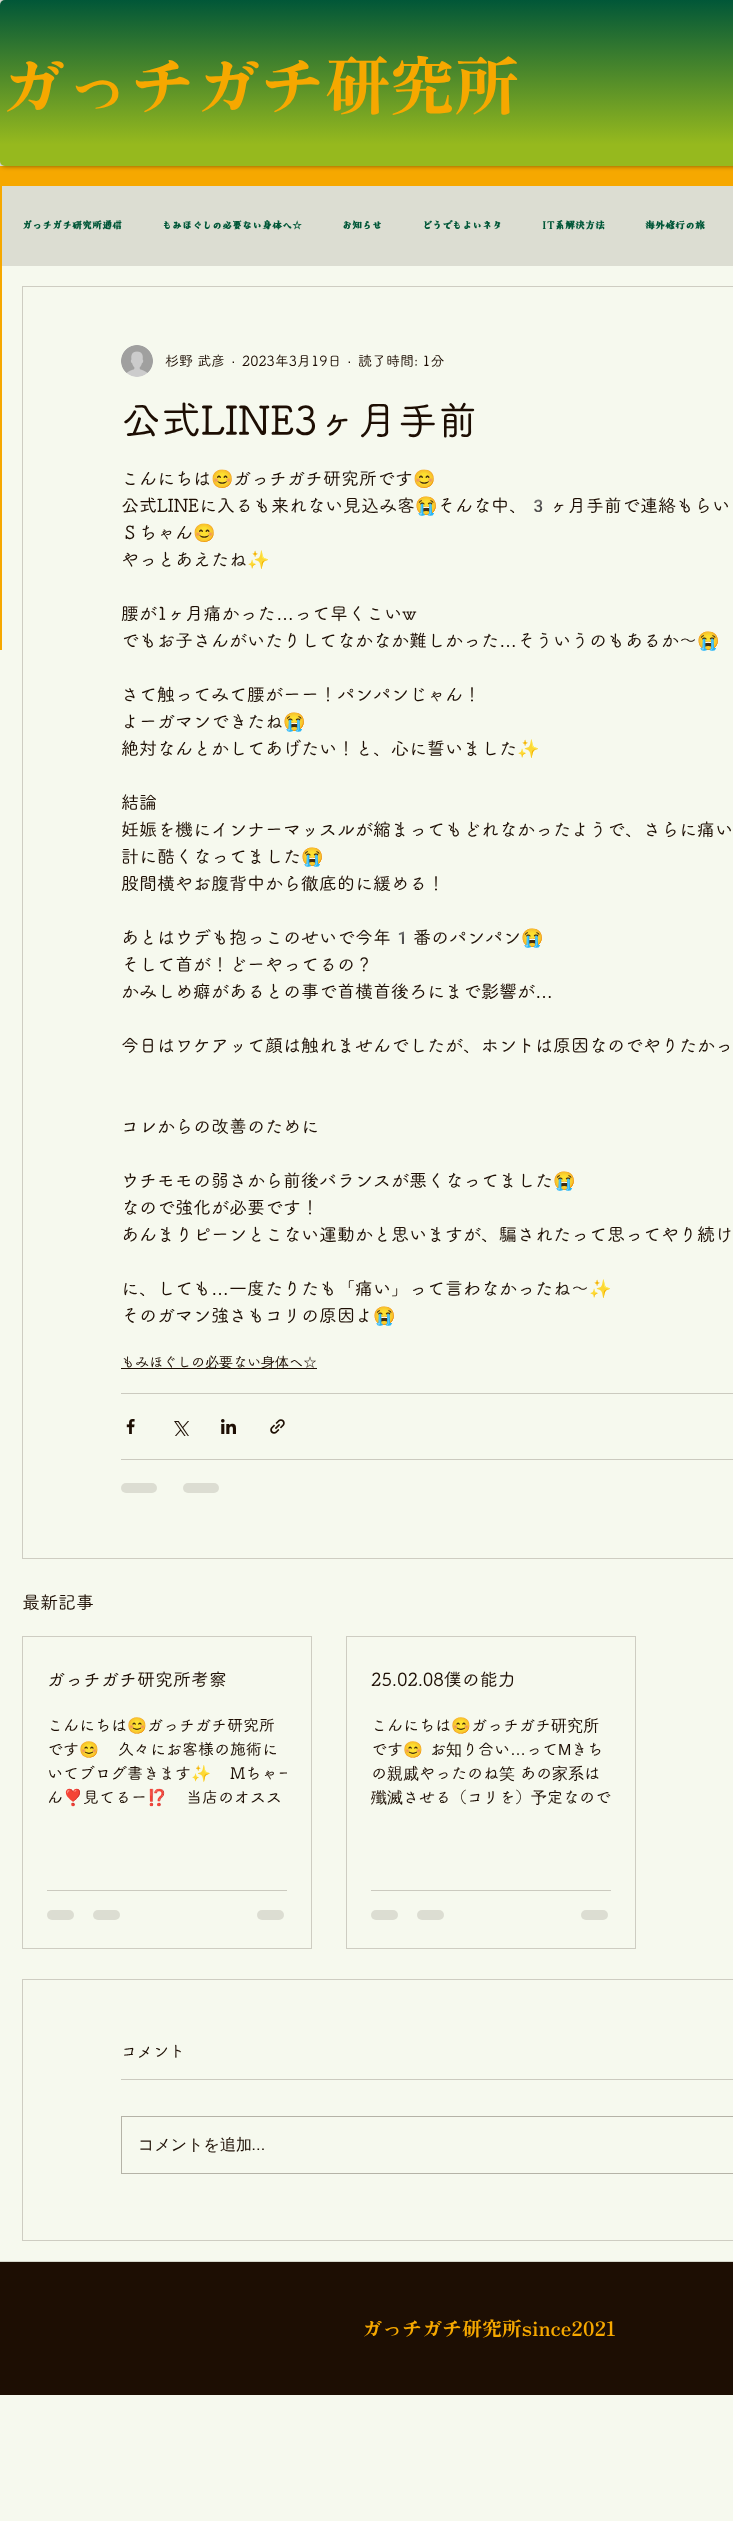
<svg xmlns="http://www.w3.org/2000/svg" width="733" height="2521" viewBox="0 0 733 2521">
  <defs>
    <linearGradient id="g1" gradientUnits="userSpaceOnUse" x1="490" y1="166" x2="490" y2="0"><stop offset="0.13" stop-color="rgb(150,185,30)"/><stop offset="1" stop-color="rgb(1,87,56)"/></linearGradient>
    <clipPath id="clip1"><rect x="47" y="1713" width="240" height="96"/></clipPath>
  </defs>
  <rect width="100%" height="100%" fill="rgb(246,249,238)"/>
  <rect x="0" y="166" width="733" height="484" fill="rgb(246,168,0)"/>
  <rect x="0" y="0" width="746" height="166" rx="5" fill="rgba(0,0,0,0.5)" filter="blur(2.5px)"/>
  <rect x="0" y="0" width="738" height="166" rx="5" fill="url(#g1)"/>
  <text x="0" y="110" font-family="Zen Antique" font-size="65" fill="rgb(246,168,0)">ガっチガチ研究所</text>
  <rect x="2" y="266" width="731" height="384" fill="rgb(246,249,238)"/>
  <rect x="2" y="186" width="731" height="80" fill="rgb(220,221,210)"/>
  <g font-family="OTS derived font" font-size="10" font-weight="bold" fill="rgb(1,87,56)">
    <text x="22" y="229">ガっチガチ研究所通信</text>
    <text x="162" y="229">もみほぐしの必要ない身体へ☆</text>
    <text x="342" y="229">お知らせ</text>
    <text x="422" y="229">どうでもよいネタ</text>
    <text x="542" y="229">IT系解決方法</text>
    <text x="645" y="229">海外修行の旅</text>
  </g>
  <rect x="22.5" y="286.5" width="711" height="1272" fill="none" stroke="rgb(206,205,194)"/>
  <image x="121" y="345" width="32" height="32" href="pic1.png"/>
  <text x="165" y="366" font-family="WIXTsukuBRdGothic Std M" font-size="14" font-weight="500" fill="rgb(29,14,3)">杉野 武彦</text>
  <text x="231" y="366" font-family="Liberation Sans" font-size="14" fill="rgb(29,14,3)">·</text>
  <text x="242" y="366" font-family="WIXTsukuBRdGothic Std M" font-size="14" font-weight="500" fill="rgb(29,14,3)">2023年3月19日</text>
  <text x="347" y="366" font-family="Liberation Sans" font-size="14" fill="rgb(29,14,3)">·</text>
  <text x="358" y="366" font-family="WIXTsukuBRdGothic Std M" font-size="14" font-weight="500" fill="rgb(29,14,3)">読了時間: 1分</text>
  <text x="121" y="435" font-family="WIXTsukuBRdGothic Std M" font-size="40" font-weight="500" fill="rgb(29,14,3)">公式LINE3ヶ月手前</text>
  <text x="121" y="485" font-family="WIXTsukuBRdGothic Std M" font-size="18" font-weight="500" fill="rgb(29,14,3)">こんにちは</text>
  <text x="211" y="485" font-family="Noto Color Emoji" font-size="18" fill="rgb(29,14,3)">😊</text>
  <text x="233" y="485" font-family="WIXTsukuBRdGothic Std M" font-size="18" font-weight="500" fill="rgb(29,14,3)">ガっチガチ研究所です</text>
  <text x="413" y="485" font-family="Noto Color Emoji" font-size="18" fill="rgb(29,14,3)">😊</text>
  <text x="121" y="512" font-family="WIXTsukuBRdGothic Std M" font-size="18" font-weight="500" fill="rgb(29,14,3)">公式LINEに入るも来れない見込み客</text>
  <text x="415" y="512" font-family="Noto Color Emoji" font-size="18" fill="rgb(29,14,3)">😭</text>
  <text x="437" y="512" font-family="WIXTsukuBRdGothic Std M" font-size="18" font-weight="500" fill="rgb(29,14,3)">そんな中、</text>
  <text x="527" y="512" font-family="Noto Color Emoji" font-size="18" fill="rgb(29,14,3)">3</text>
  <g font-family="WIXTsukuBRdGothic Std M" font-size="18" font-weight="500" fill="rgb(29,14,3)">
    <text x="550" y="512">ヶ月手前で連絡もらい</text>
    <text x="121" y="539">Ｓちゃん</text>
  </g>
  <text x="193" y="539" font-family="Noto Color Emoji" font-size="18" fill="rgb(29,14,3)">😊</text>
  <text x="121" y="566" font-family="WIXTsukuBRdGothic Std M" font-size="18" font-weight="500" fill="rgb(29,14,3)">やっとあえたね</text>
  <text x="247" y="566" font-family="Noto Color Emoji" font-size="18" fill="rgb(29,14,3)">✨</text>
  <text x="121" y="620" font-family="WIXTsukuBRdGothic Std M" font-size="18" font-weight="500" fill="rgb(29,14,3)">腰が1ヶ月痛かった</text>
  <text x="276" y="620" font-family="Liberation Sans" font-size="18" fill="rgb(29,14,3)">…</text>
  <g font-family="WIXTsukuBRdGothic Std M" font-size="18" font-weight="500" fill="rgb(29,14,3)">
    <text x="294" y="620">って早くこいw</text>
    <text x="121" y="647">でもお子さんがいたりしてなかなか難しかった</text>
  </g>
  <text x="499" y="647" font-family="Liberation Sans" font-size="18" fill="rgb(29,14,3)">…</text>
  <text x="517" y="647" font-family="WIXTsukuBRdGothic Std M" font-size="18" font-weight="500" fill="rgb(29,14,3)">そういうのもあるか〜</text>
  <text x="697" y="647" font-family="Noto Color Emoji" font-size="18" fill="rgb(29,14,3)">😭</text>
  <g font-family="WIXTsukuBRdGothic Std M" font-size="18" font-weight="500" fill="rgb(29,14,3)">
    <text>
      <tspan x="121" y="701">さて触ってみて腰がーー！パンパンじゃん！</tspan>
      <tspan x="121" y="728">よーガマンできたね</tspan>
    </text>
  </g>
  <text x="283" y="728" font-family="Noto Color Emoji" font-size="18" fill="rgb(29,14,3)">😭</text>
  <text x="121" y="755" font-family="WIXTsukuBRdGothic Std M" font-size="18" font-weight="500" fill="rgb(29,14,3)">絶対なんとかしてあげたい！と、心に誓いました</text>
  <text x="517" y="755" font-family="Noto Color Emoji" font-size="18" fill="rgb(29,14,3)">✨</text>
  <g font-family="WIXTsukuBRdGothic Std M" font-size="18" font-weight="500" fill="rgb(29,14,3)">
    <text>
      <tspan x="121" y="809">結論</tspan>
      <tspan x="121" y="836">妊娠を機にインナーマッスルが縮まってもどれなかったようで、さらに痛い</tspan>
      <tspan x="121" y="863">計に酷くなってました</tspan>
    </text>
  </g>
  <text x="301" y="863" font-family="Noto Color Emoji" font-size="18" fill="rgb(29,14,3)">😭</text>
  <g font-family="WIXTsukuBRdGothic Std M" font-size="18" font-weight="500" fill="rgb(29,14,3)">
    <text x="121" y="890">股間横やお腹背中から徹底的に緩める！</text>
    <text x="121" y="944">あとはウデも抱っこのせいで今年</text>
  </g>
  <text x="391" y="944" font-family="Noto Color Emoji" font-size="18" fill="rgb(29,14,3)">1</text>
  <text x="413" y="944" font-family="WIXTsukuBRdGothic Std M" font-size="18" font-weight="500" fill="rgb(29,14,3)">番のパンパン</text>
  <text x="521" y="944" font-family="Noto Color Emoji" font-size="18" fill="rgb(29,14,3)">😭</text>
  <g font-family="WIXTsukuBRdGothic Std M" font-size="18" font-weight="500" fill="rgb(29,14,3)">
    <text>
      <tspan x="121" y="971">そして首が！どーやってるの？</tspan>
      <tspan x="121" y="998">かみしめ癖があるとの事で首横首後ろにまで影響が</tspan>
    </text>
  </g>
  <text x="535" y="998" font-family="Liberation Sans" font-size="18" fill="rgb(29,14,3)">…</text>
  <g font-family="WIXTsukuBRdGothic Std M" font-size="18" font-weight="500" fill="rgb(29,14,3)">
    <text x="121" y="1052">今日はワケアッて顔は触れませんでしたが、ホントは原因なのでやりたかっ</text>
    <text x="121" y="1133">コレからの改善のために</text>
    <text x="121" y="1187">ウチモモの弱さから前後バランスが悪くなってました</text>
  </g>
  <text x="553" y="1187" font-family="Noto Color Emoji" font-size="18" fill="rgb(29,14,3)">😭</text>
  <g font-family="WIXTsukuBRdGothic Std M" font-size="18" font-weight="500" fill="rgb(29,14,3)">
    <text>
      <tspan x="121" y="1214">なので強化が必要です！</tspan>
      <tspan x="121" y="1241">あんまりピーンとこない運動かと思いますが、騙されたって思ってやり続け</tspan>
    </text>
    <text x="121" y="1295">に、しても</text>
  </g>
  <text x="211" y="1295" font-family="Liberation Sans" font-size="18" fill="rgb(29,14,3)">…</text>
  <text x="229" y="1295" font-family="WIXTsukuBRdGothic Std M" font-size="18" font-weight="500" fill="rgb(29,14,3)">一度たりたも「痛い」って言わなかったね〜</text>
  <text x="589" y="1295" font-family="Noto Color Emoji" font-size="18" fill="rgb(29,14,3)">✨</text>
  <text x="121" y="1322" font-family="WIXTsukuBRdGothic Std M" font-size="18" font-weight="500" fill="rgb(29,14,3)">そのガマン強さもコリの原因よ</text>
  <text x="373" y="1322" font-family="Noto Color Emoji" font-size="18" fill="rgb(29,14,3)">😭</text>
  <text x="121" y="1367" font-family="WIXTsukuBRdGothic Std M" font-size="14" font-weight="500" fill="rgb(29,14,3)">もみほぐしの</text>
  <rect x="121" y="1368" width="196" height="1" fill="rgb(29,14,3)"/>
  <text x="205" y="1367" font-family="WenQuanYi Zen Hei" font-size="14" font-weight="500" fill="rgb(29,14,3)">必要</text>
  <text x="233" y="1367" font-family="WIXTsukuBRdGothic Std M" font-size="14" font-weight="500" fill="rgb(29,14,3)">ない</text>
  <text x="261" y="1367" font-family="WenQuanYi Zen Hei" font-size="14" font-weight="500" fill="rgb(29,14,3)">身体</text>
  <text x="289" y="1367" font-family="WIXTsukuBRdGothic Std M" font-size="14" font-weight="500" fill="rgb(29,14,3)">へ</text>
  <text x="303" y="1367" font-family="WenQuanYi Zen Hei" font-size="14" font-weight="500" fill="rgb(29,14,3)">☆</text>
  <rect x="121" y="1393" width="612" height="1" fill="rgb(203,202,191)"/>
  <image x="126" y="1419" width="9" height="15" href="pic2.png"/>
  <image x="174" y="1421" width="15" height="15" href="pic3.png"/>
  <image x="221" y="1419" width="15" height="15" href="pic4.png"/>
  <image x="270" y="1419" width="15" height="15" href="pic5.png"/>
  <rect x="121" y="1459" width="612" height="1" fill="rgb(203,202,191)"/>
  <rect x="121" y="1483" width="36" height="10" rx="5" fill="rgb(220,221,210)"/>
  <rect x="183" y="1483" width="36" height="10" rx="5" fill="rgb(220,221,210)"/>
  <text x="22" y="1609" font-family="WIXTsukuBRdGothic Std M" font-size="18" font-weight="500" fill="rgb(29,14,3)">最新記事</text>
  <rect x="22.5" y="1636.5" width="289" height="312" fill="none" stroke="rgb(206,205,194)"/>
  <text x="47" y="1686" font-family="WIXTsukuBRdGothic Std M" font-size="18" font-weight="500" fill="rgb(29,14,3)">ガっチガチ研究所考察</text>
  <text x="47" y="1731" font-family="WIXTsukuBRdGothic Std M" font-size="16" font-weight="500" fill="rgb(29,14,3)">こんにちは</text>
  <text x="127" y="1731" font-family="Noto Color Emoji" font-size="16" fill="rgb(29,14,3)">😊</text>
  <g font-family="WIXTsukuBRdGothic Std M" font-size="16" font-weight="500" fill="rgb(29,14,3)">
    <text x="147" y="1731">ガっチガチ研究所</text>
    <text x="47" y="1755">です</text>
  </g>
  <text x="79" y="1755" font-family="Noto Color Emoji" font-size="16" fill="rgb(29,14,3)">😊</text>
  <g font-family="WIXTsukuBRdGothic Std M" font-size="16" font-weight="500" fill="rgb(29,14,3)">
    <text x="118" y="1755">久々にお客様の施術に</text>
    <text x="47" y="1779">いてブログ書きます</text>
  </g>
  <text x="191" y="1779" font-family="Noto Color Emoji" font-size="16" fill="rgb(29,14,3)">✨</text>
  <g clip-path="url(#clip1)">
    <text x="230" y="1779" font-family="WIXTsukuBRdGothic Std M" font-size="16" font-weight="500" fill="rgb(29,14,3)">Mちゃー</text>
  </g>
  <text x="47" y="1803" font-family="WIXTsukuBRdGothic Std M" font-size="16" font-weight="500" fill="rgb(29,14,3)">ん</text>
  <text x="63" y="1803" font-family="Noto Color Emoji" font-size="16" fill="rgb(29,14,3)">❣️</text>
  <text x="83" y="1803" font-family="WIXTsukuBRdGothic Std M" font-size="16" font-weight="500" fill="rgb(29,14,3)">見てるー</text>
  <text x="147" y="1803" font-family="Noto Color Emoji" font-size="16" fill="rgb(29,14,3)">⁉️</text>
  <text x="186" y="1803" font-family="WIXTsukuBRdGothic Std M" font-size="16" font-weight="500" fill="rgb(29,14,3)">当店のオスス</text>
  <rect x="47" y="1890" width="240" height="1" fill="rgb(203,202,191)"/>
  <rect x="47" y="1910" width="27" height="10" rx="5" fill="rgb(220,221,210)"/>
  <rect x="93" y="1910" width="27" height="10" rx="5" fill="rgb(220,221,210)"/>
  <rect x="257" y="1910" width="27" height="10" rx="5" fill="rgb(220,221,210)"/>
  <rect x="346.5" y="1636.5" width="289" height="312" fill="none" stroke="rgb(206,205,194)"/>
  <text x="371" y="1686" font-family="WIXTsukuBRdGothic Std M" font-size="18" font-weight="500" fill="rgb(29,14,3)">25.02.08僕の能力</text>
  <text x="371" y="1731" font-family="WIXTsukuBRdGothic Std M" font-size="16" font-weight="500" fill="rgb(29,14,3)">こんにちは</text>
  <text x="451" y="1731" font-family="'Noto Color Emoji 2'" font-size="16" fill="rgb(29,14,3)">😊</text>
  <text x="471" y="1731" font-family="WIXTsukuBRdGothic Std M" font-size="16" font-weight="500" fill="rgb(29,14,3)">ガっチガチ</text>
  <text x="551" y="1731" font-family="WenQuanYi Zen Hei" font-size="16" font-weight="500" fill="rgb(29,14,3)">研究所</text>
  <text x="371" y="1755" font-family="WIXTsukuBRdGothic Std M" font-size="16" font-weight="500" fill="rgb(29,14,3)">です</text>
  <text x="403" y="1755" font-family="'Noto Color Emoji 2'" font-size="16" fill="rgb(29,14,3)">😊</text>
  <text x="430" y="1755" font-family="WIXTsukuBRdGothic Std M" font-size="16" font-weight="500" fill="rgb(29,14,3)">お</text>
  <text x="446" y="1755" font-family="WenQuanYi Zen Hei" font-size="16" font-weight="500" fill="rgb(29,14,3)">知</text>
  <text x="462" y="1755" font-family="WIXTsukuBRdGothic Std M" font-size="16" font-weight="500" fill="rgb(29,14,3)">り合い</text>
  <text x="510" y="1755" font-family="Liberation Sans" font-size="16" fill="rgb(29,14,3)">…</text>
  <text x="526" y="1755" font-family="WIXTsukuBRdGothic Std M" font-size="16" font-weight="500" fill="rgb(29,14,3)">って</text>
  <text x="558" y="1755" font-family="Liberation Sans" font-size="16" fill="rgb(29,14,3)">M</text>
  <g font-family="WIXTsukuBRdGothic Std M" font-size="16" font-weight="500" fill="rgb(29,14,3)">
    <text x="571" y="1755">きち</text>
    <text x="371" y="1779">の</text>
  </g>
  <text x="387" y="1779" font-family="WenQuanYi Zen Hei" font-size="16" font-weight="500" fill="rgb(29,14,3)">親戚</text>
  <text x="419" y="1779" font-family="WIXTsukuBRdGothic Std M" font-size="16" font-weight="500" fill="rgb(29,14,3)">やったのね</text>
  <text x="499" y="1779" font-family="WenQuanYi Zen Hei" font-size="16" font-weight="500" fill="rgb(29,14,3)">笑</text>
  <text x="520" y="1779" font-family="WIXTsukuBRdGothic Std M" font-size="16" font-weight="500" fill="rgb(29,14,3)">あの</text>
  <text x="552" y="1779" font-family="WenQuanYi Zen Hei" font-size="16" font-weight="500" fill="rgb(29,14,3)">家系</text>
  <text x="584" y="1779" font-family="WIXTsukuBRdGothic Std M" font-size="16" font-weight="500" fill="rgb(29,14,3)">は</text>
  <text x="371" y="1803" font-family="WenQuanYi Zen Hei" font-size="16" font-weight="500" fill="rgb(29,14,3)">殲滅</text>
  <text x="403" y="1803" font-family="WIXTsukuBRdGothic Std M" font-size="16" font-weight="500" fill="rgb(29,14,3)">させる（コリを）</text>
  <text x="531" y="1803" font-family="WenQuanYi Zen Hei" font-size="16" font-weight="500" fill="rgb(29,14,3)">予</text>
  <text x="547" y="1803" font-family="WIXTsukuBRdGothic Std M" font-size="16" font-weight="500" fill="rgb(29,14,3)">定なので</text>
  <rect x="371" y="1890" width="240" height="1" fill="rgb(203,202,191)"/>
  <rect x="371" y="1910" width="27" height="10" rx="5" fill="rgb(220,221,210)"/>
  <rect x="417" y="1910" width="27" height="10" rx="5" fill="rgb(220,221,210)"/>
  <rect x="581" y="1910" width="27" height="10" rx="5" fill="rgb(220,221,210)"/>
  <rect x="22.5" y="1979.5" width="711" height="261" fill="none" stroke="rgb(206,205,194)"/>
  <text x="121" y="2057" font-family="WIXTsukuBRdGothic Std M" font-size="16" font-weight="500" fill="rgb(29,14,3)">コメント</text>
  <rect x="121" y="2079" width="612" height="1" fill="rgb(203,202,191)"/>
  <rect x="121.5" y="2116.5" width="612" height="57" fill="none" stroke="rgb(181,179,167)"/>
  <text x="138" y="2150" font-family="WenQuanYi Zen Hei" font-size="16" font-weight="500" fill="rgb(29,14,3)">コメントを追加</text>
  <text x="252" y="2150" font-family="Questrial" font-size="16" fill="rgb(29,14,3)">…</text>
  <rect x="0" y="2261" width="733" height="1" fill="rgb(213,214,203)"/>
  <rect x="0" y="2262" width="733" height="133" fill="rgb(29,14,3)"/>
  <text x="362" y="2336" font-family="Zen Antique" font-size="20" fill="rgb(246,168,0)">ガっチガチ研究所since2021</text>
</svg>
